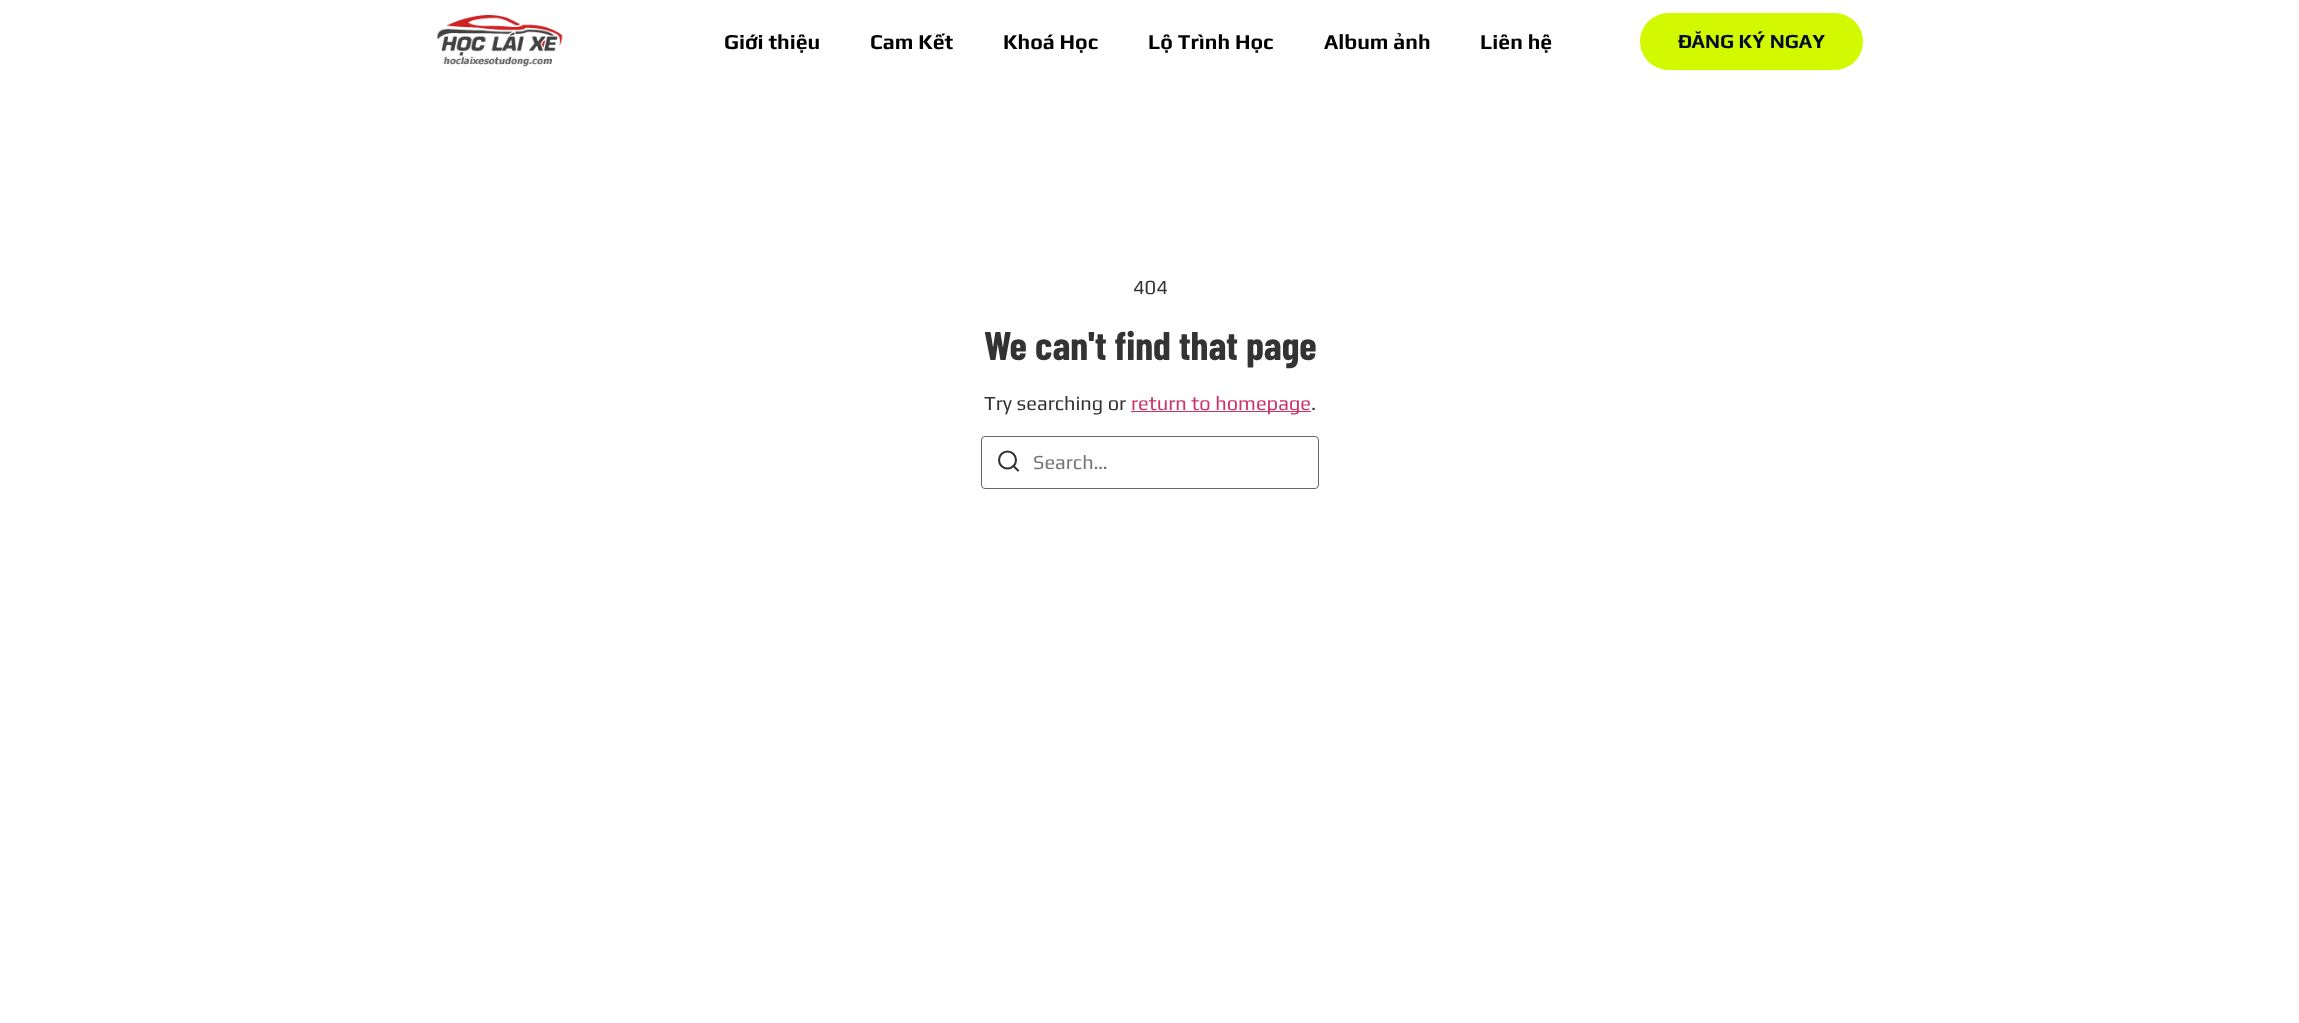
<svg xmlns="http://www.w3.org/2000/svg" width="2299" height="1023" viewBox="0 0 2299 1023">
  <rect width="100%" height="100%" fill="rgb(255,255,255)"/>
  <image x="437" y="15" width="126" height="52" href="pic1.png"/>
  <g font-family="Play" font-size="21.25" font-weight="bold" fill="rgb(1,1,1)">
    <text x="724" y="49">Giới thiệu</text>
    <text x="870" y="49">Cam Kết</text>
    <text x="1003" y="49">Khoá Học</text>
    <text x="1148" y="49">Lộ Trình Học</text>
    <text x="1324" y="49">Album ảnh</text>
    <text x="1480" y="49">Liên hệ</text>
  </g>
  <rect x="1640" y="13" width="223" height="57" rx="28.5" fill="rgb(211,249,1)"/>
  <text x="1678" y="48" font-family="Play" font-size="20" font-weight="bold" fill="rgb(2,13,43)">ĐĂNG KÝ NGAY</text>
  <text x="1133" y="294" font-family="Play" font-size="20" fill="rgb(51,51,51)">404</text>
  <text x="984" y="360" font-family="Barlow Condensed" font-size="40" font-weight="bold" fill="rgb(51,51,51)">We can't find that page</text>
  <text x="984" y="410" font-family="Play" font-size="20" fill="rgb(51,51,51)">Try searching or</text>
  <rect x="1131" y="411" width="180" height="1" fill="rgb(204,51,102)"/>
  <text x="1131" y="410" font-family="Play" font-size="20" fill="rgb(204,51,102)">return to homepage</text>
  <text x="1311" y="410" font-family="Play" font-size="20" fill="rgb(51,51,51)">.</text>
  <rect x="981.5" y="436.5" width="337" height="52" rx="3.5" fill="none" stroke="rgb(102,102,102)"/>
  <circle cx="1007.5" cy="460" r="8.5" fill="none" stroke="rgb(51,51,51)" stroke-width="2.1"/>
  <path d="M1018 470.5L1013.5 466" fill="none" stroke="rgb(51,51,51)" stroke-width="2.1" stroke-linecap="round" stroke-linejoin="round"/>
  <text x="1033" y="469" font-family="Play" font-size="20" fill="rgb(117,117,117)">Search…</text>
</svg>
